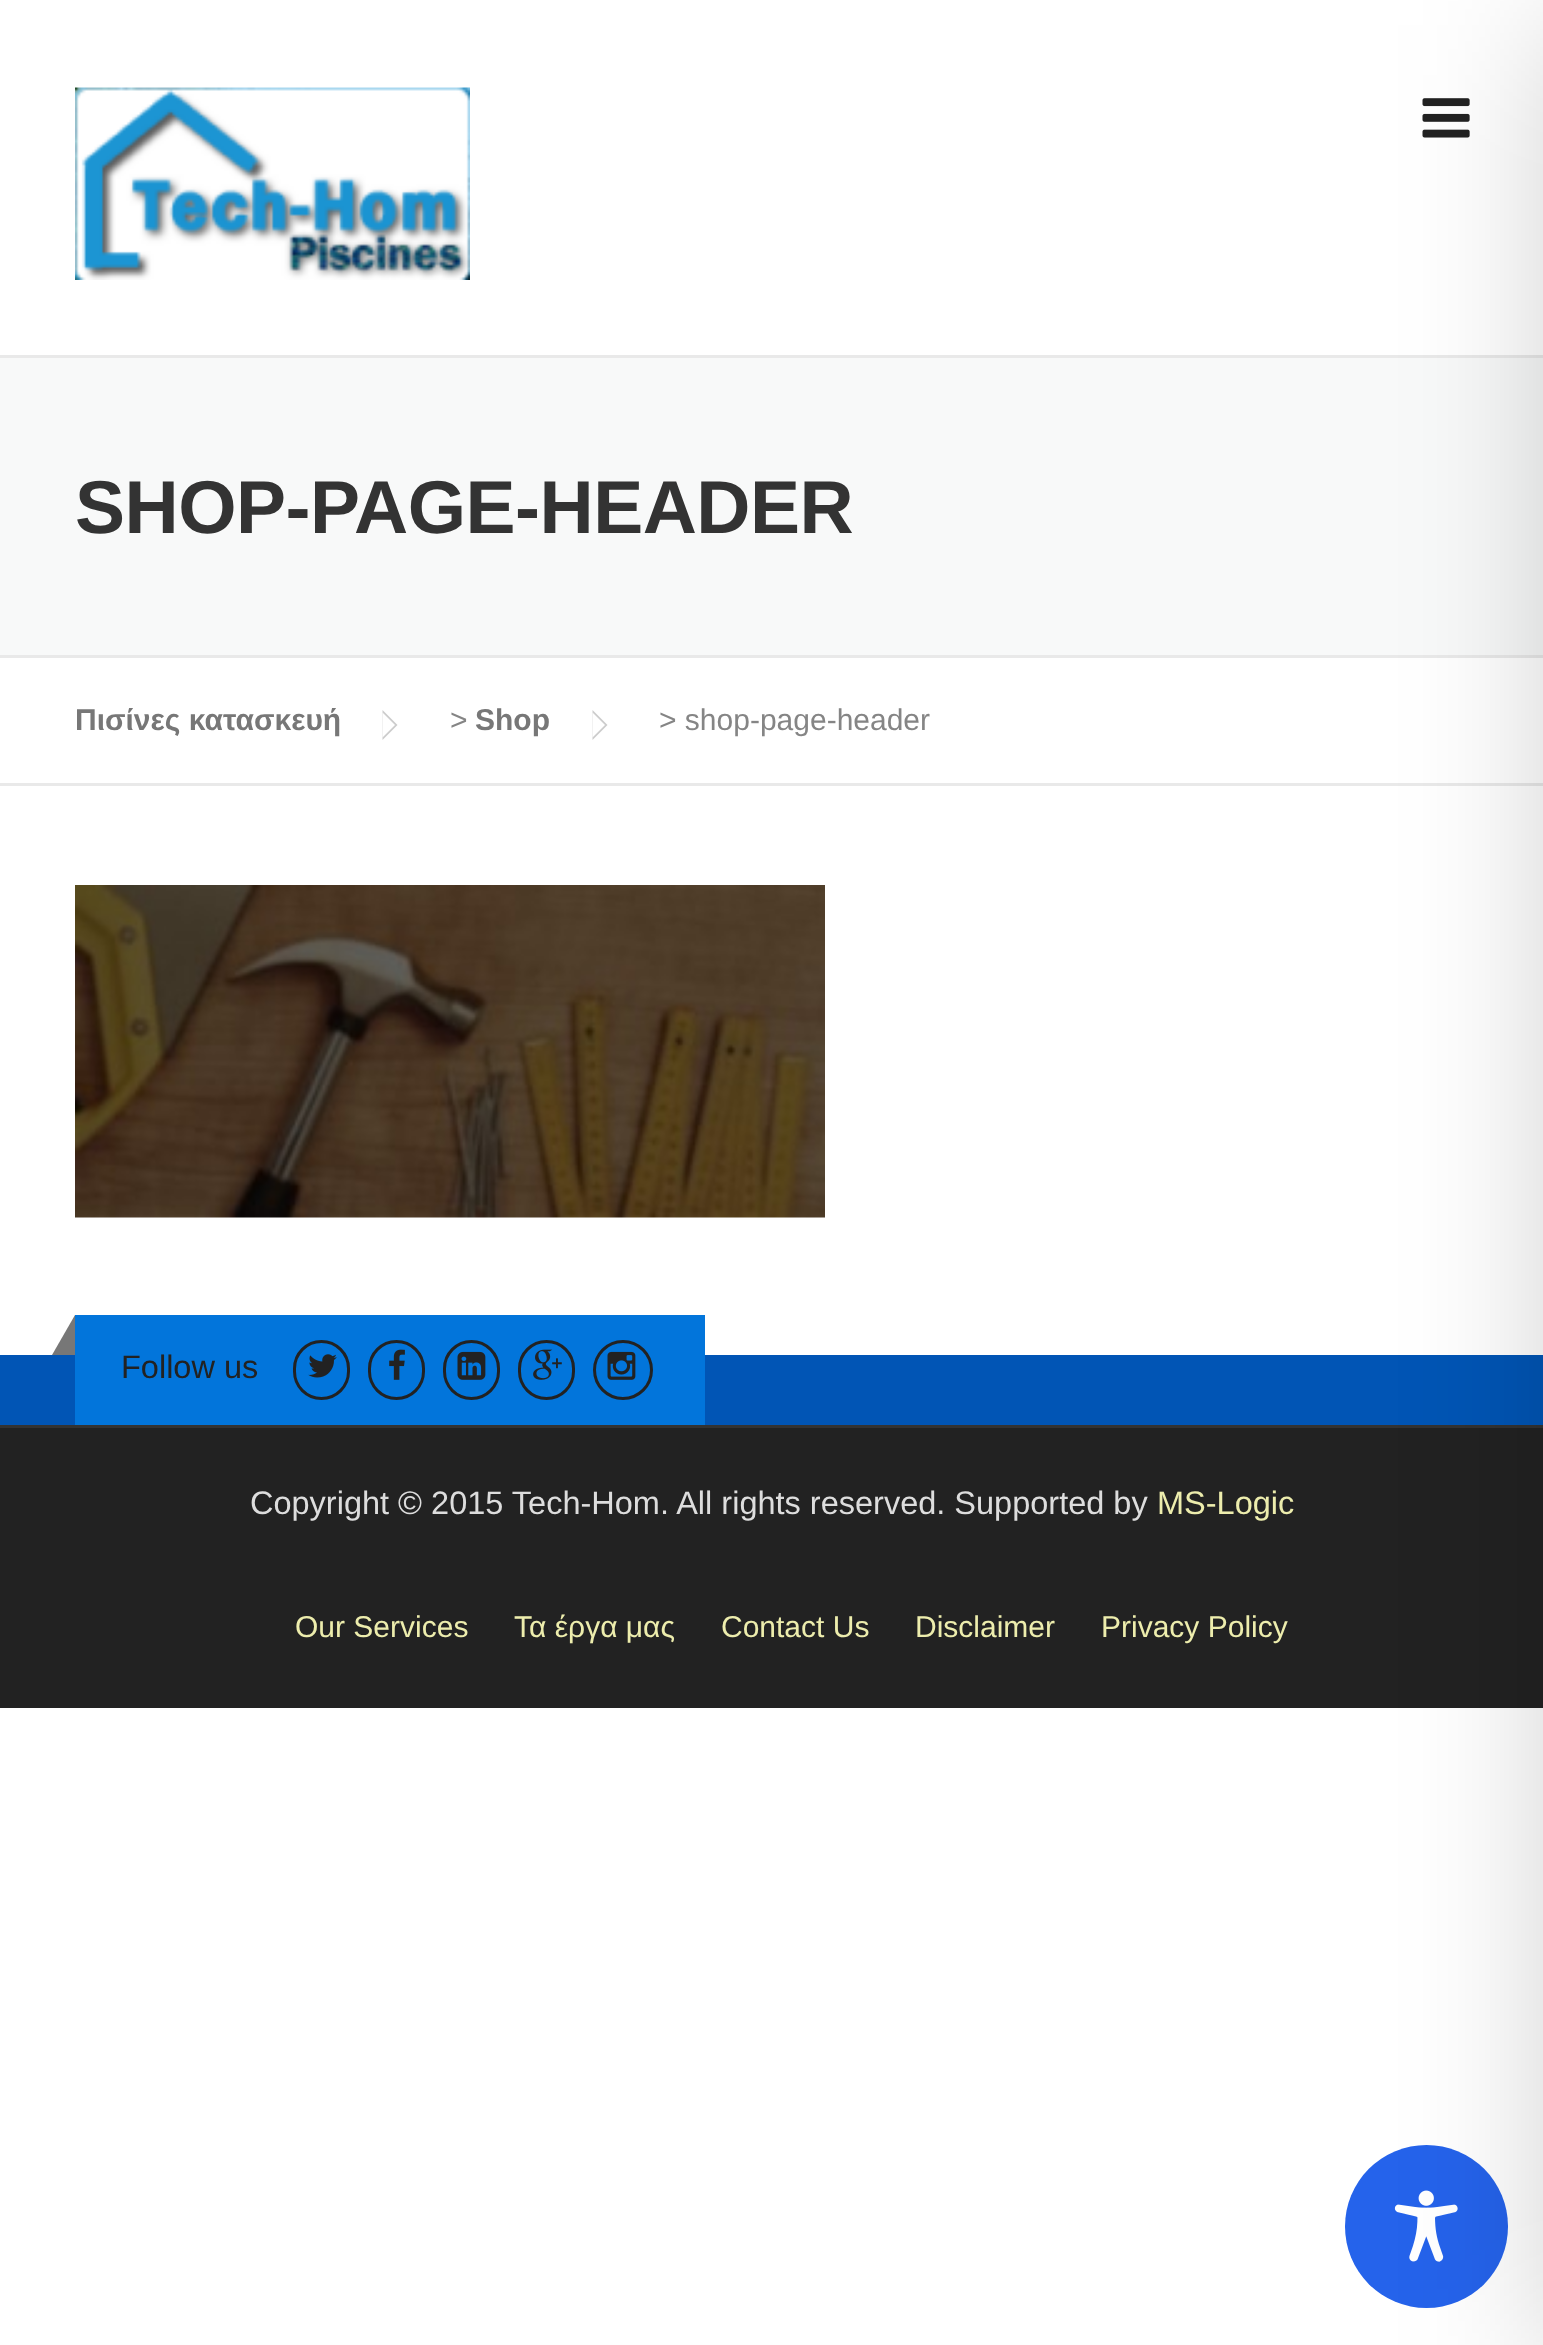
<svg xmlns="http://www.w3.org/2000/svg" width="1543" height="2345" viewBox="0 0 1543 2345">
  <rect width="100%" height="100%" fill="rgb(255,255,255)"/>
  <image x="75" y="87" width="395" height="193" href="pic1.png"/>
  <image x="1422" y="98" width="48" height="40" href="pic2.png"/>
  <rect x="0" y="358" width="1543" height="297" fill="rgb(248,249,249)"/>
  <rect x="0" y="355" width="1543" height="3" fill="rgb(233,233,233)"/>
  <rect x="0" y="655" width="1543" height="3" fill="rgb(233,233,233)"/>
  <text x="75" y="533" font-family="Liberation Sans" font-size="75" font-weight="bold" letter-spacing="-0.5" fill="rgb(51,51,51)">SHOP-PAGE-HEADER</text>
  <rect x="0" y="783" width="1543" height="3" fill="rgb(233,233,233)"/>
  <text x="75" y="730" font-family="Liberation Sans" font-size="30" font-weight="bold" fill="rgb(119,119,119)">Πισίνες κατασκευή</text>
  <path d="M382.5 740V710L397.5 725Z" fill="rgb(204,204,204)"/>
  <path d="M382.5 737.5V712.5L395 725Z" fill="rgb(255,255,255)"/>
  <text x="450" y="730" font-family="Liberation Sans" font-size="30" fill="rgb(133,133,133)">&gt;</text>
  <text x="475" y="730" font-family="Liberation Sans" font-size="30" font-weight="bold" fill="rgb(119,119,119)">Shop</text>
  <path d="M592.5 740V710L607.5 725Z" fill="rgb(204,204,204)"/>
  <path d="M592.5 737.5V712.5L605 725Z" fill="rgb(255,255,255)"/>
  <text x="659" y="730" font-family="Liberation Sans" font-size="30" fill="rgb(133,133,133)">&gt; shop-page-header</text>
  <image x="75" y="885" width="750" height="333" href="pic3.png"/>
  <rect x="0" y="1355" width="1543" height="70" fill="rgb(1,85,181)"/>
  <rect x="75" y="1315" width="630" height="110" fill="rgb(2,117,219)"/>
  <path d="M75 1315V1355H52Z" fill="rgb(119,119,119)"/>
  <text x="121" y="1378" font-family="Liberation Sans" font-size="32.5" fill="rgb(34,34,34)">Follow us</text>
  <rect x="294.5" y="1341.5" width="54" height="57" rx="27" fill="none" stroke="rgb(34,34,34)" stroke-width="3"/>
  <image x="308" y="1354" width="29" height="24" href="pic4.png"/>
  <rect x="369.5" y="1341.5" width="54" height="57" rx="27" fill="none" stroke="rgb(34,34,34)" stroke-width="3"/>
  <image x="389" y="1349" width="16" height="31" href="pic5.png"/>
  <rect x="444.5" y="1341.5" width="54" height="57" rx="27" fill="none" stroke="rgb(34,34,34)" stroke-width="3"/>
  <image x="457" y="1351" width="29" height="29" href="pic6.png"/>
  <rect x="519.5" y="1341.5" width="54" height="57" rx="27" fill="none" stroke="rgb(34,34,34)" stroke-width="3"/>
  <image x="533" y="1349" width="29" height="31" href="pic7.png"/>
  <circle cx="623" cy="1370" r="28.5" fill="none" stroke="rgb(34,34,34)" stroke-width="3"/>
  <image x="607" y="1351" width="29" height="29" href="pic8.png"/>
  <rect x="0" y="1428" width="1543" height="280" fill="rgb(34,34,34)"/>
  <rect x="0" y="1425" width="1543" height="3" fill="rgb(51,51,51)"/>
  <text x="250" y="1514" font-family="Liberation Sans" font-size="32.5" fill="rgb(221,221,221)">Copyright © 2015 Tech-Hom. All rights reserved. Supported by</text>
  <text x="1157" y="1514" font-family="Liberation Sans" font-size="32.5" fill="rgb(237,237,173)">MS-Logic</text>
  <g font-family="Liberation Sans" font-size="30" fill="rgb(237,237,173)">
    <text x="295" y="1637">Our Services</text>
    <text x="514" y="1637">Τα έργα μας</text>
    <text x="721" y="1637">Contact Us</text>
    <text x="915" y="1637">Disclaimer</text>
    <text x="1101" y="1637">Privacy Policy</text>
  </g>
  <circle cx="1426.5" cy="2226.5" r="81.5" fill="rgb(37,99,235)"/>
  <image x="1394" y="2190" width="64" height="72" href="pic9.png"/>
  <rect x="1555" y="25" width="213" height="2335" fill="rgba(0,0,0,0.2)" filter="blur(75px)"/>
</svg>
